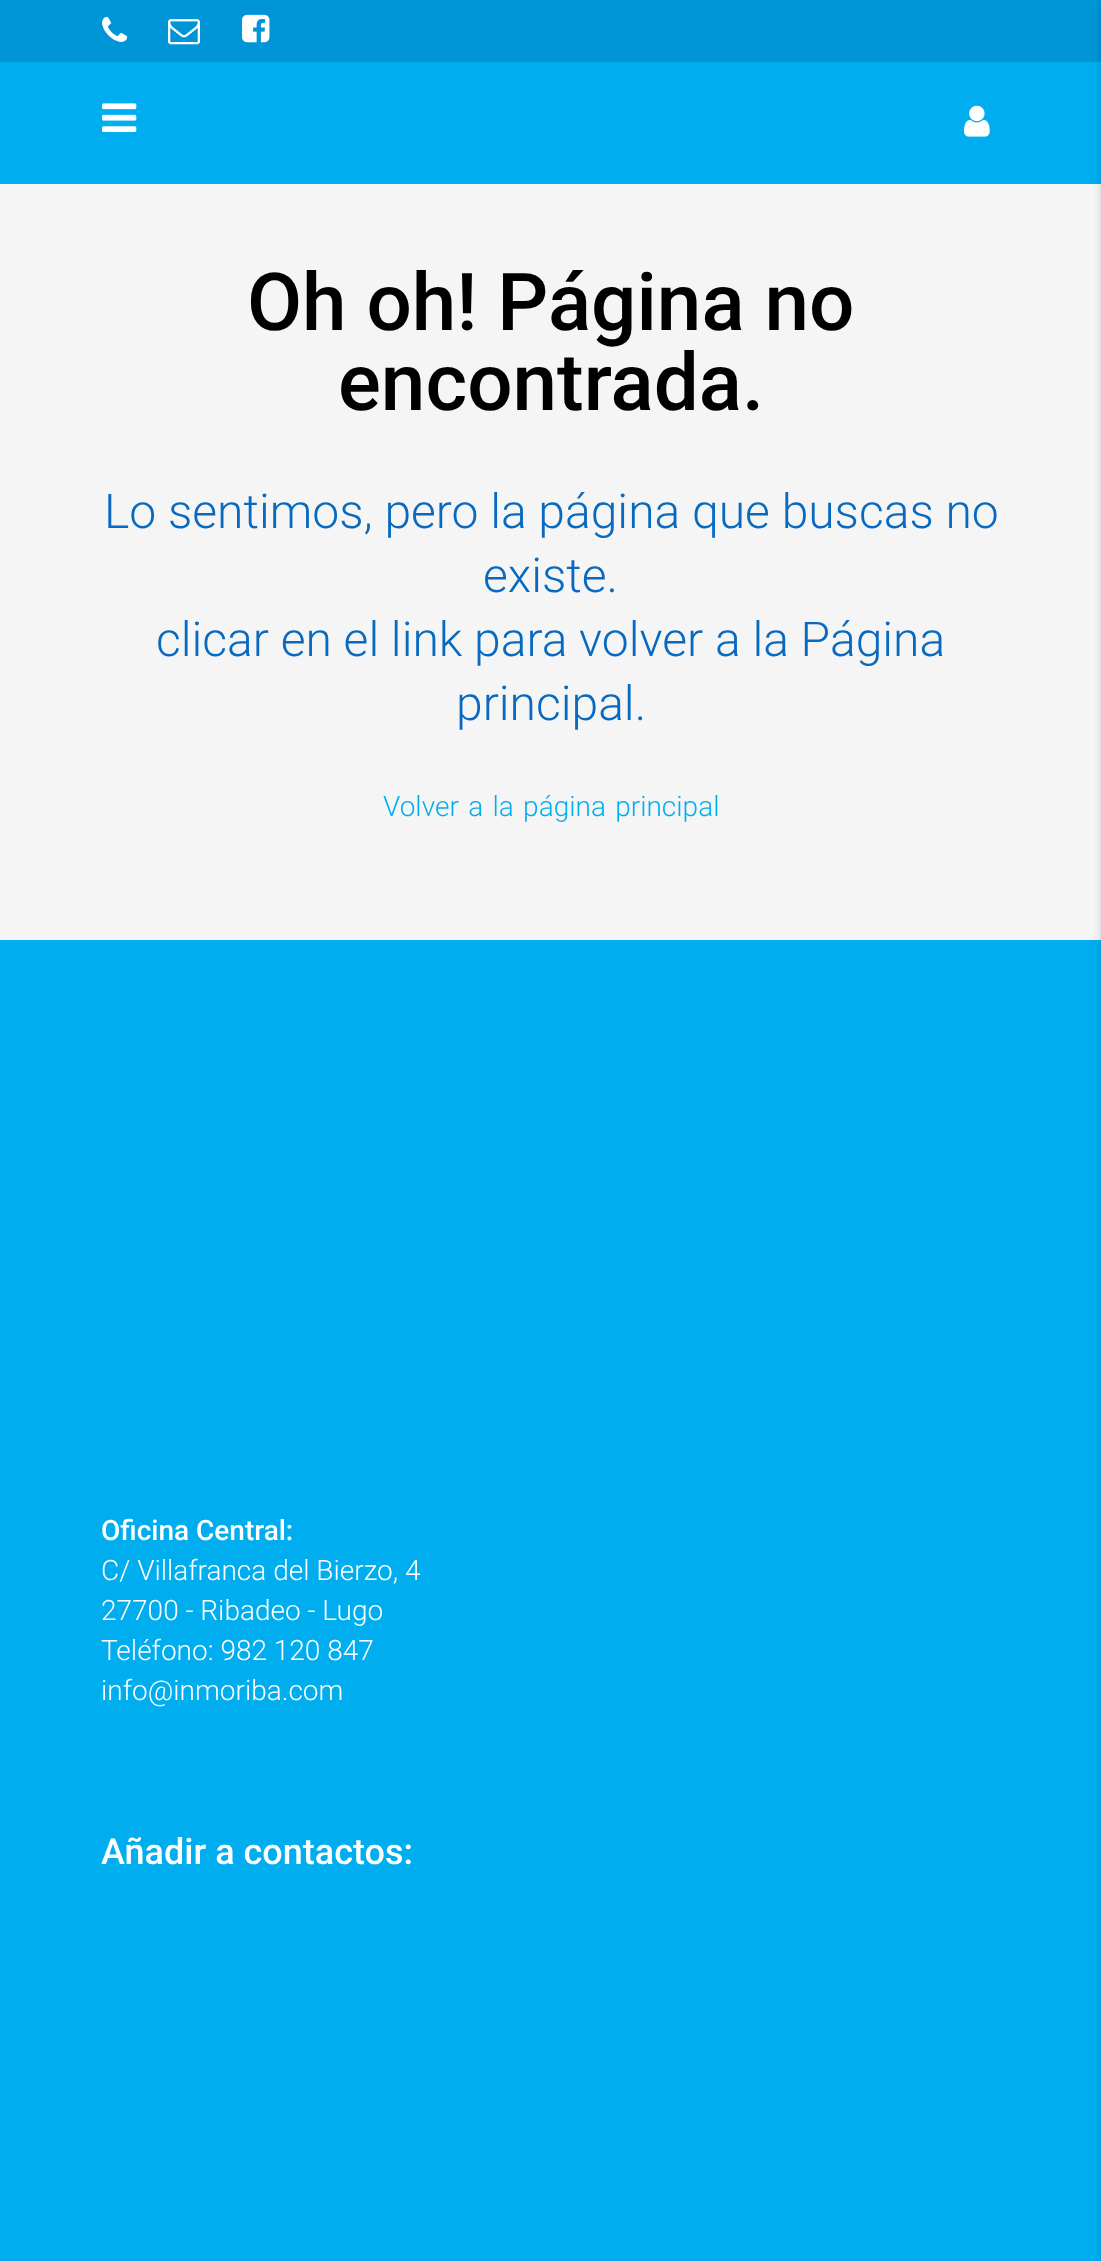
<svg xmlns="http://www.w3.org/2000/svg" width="1101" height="2261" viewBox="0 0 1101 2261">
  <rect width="100%" height="100%" fill="rgb(245,245,245)"/>
  <rect x="0" y="0" width="1101" height="62" fill="rgb(0,149,214)"/>
  <image x="102" y="16" width="26" height="26" href="pic1.png"/>
  <image x="168" y="19" width="32" height="26" href="pic2.png"/>
  <image x="242" y="14" width="28" height="29" href="pic3.png"/>
  <rect x="0" y="62" width="1101" height="122" fill="rgb(0,174,239)"/>
  <image x="102" y="103" width="35" height="29" href="pic4.png"/>
  <image x="964" y="105" width="26" height="32" href="pic5.png"/>
  <g font-family="Roboto" font-size="80" font-weight="500" fill="rgb(0,0,0)">
    <text x="247" y="330">Oh oh! Página no</text>
    <text x="338" y="410">encontrada.</text>
  </g>
  <g font-family="Roboto" font-size="48" font-weight="300" fill="rgb(7,105,191)">
    <text x="104" y="528">Lo sentimos, pero la página que buscas no</text>
    <text x="483" y="592">existe.</text>
    <text x="156" y="656">clicar en el link para volver a la Página</text>
    <text x="456" y="720">principal.</text>
  </g>
  <text x="383" y="816" word-spacing="2.5" font-family="Roboto" font-size="28" font-weight="300" fill="rgb(0,174,239)">Volver a la página principal</text>
  <rect x="0" y="940" width="1101" height="1321" fill="rgb(0,174,239)"/>
  <rect x="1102" y="4" width="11" height="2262" fill="rgba(0,0,0,0.2)" filter="blur(4px)"/>
  <text x="101" y="1540" font-family="Roboto" font-size="28" font-weight="500" fill="rgb(255,255,255)">Oficina Central:</text>
  <g font-family="Roboto" font-size="28" font-weight="300" fill="rgb(255,255,255)">
    <text>
      <tspan x="101" y="1580">C/ Villafranca del Bierzo, 4</tspan>
      <tspan x="101" y="1620">27700 - Ribadeo - Lugo</tspan>
      <tspan x="101" y="1660">Teléfono: 982 120 847</tspan>
      <tspan x="101" y="1700">info@inmoriba.com</tspan>
    </text>
  </g>
  <text x="101" y="1864" font-family="Roboto" font-size="36" font-weight="500" fill="rgb(255,255,255)">Añadir a contactos:</text>
</svg>
